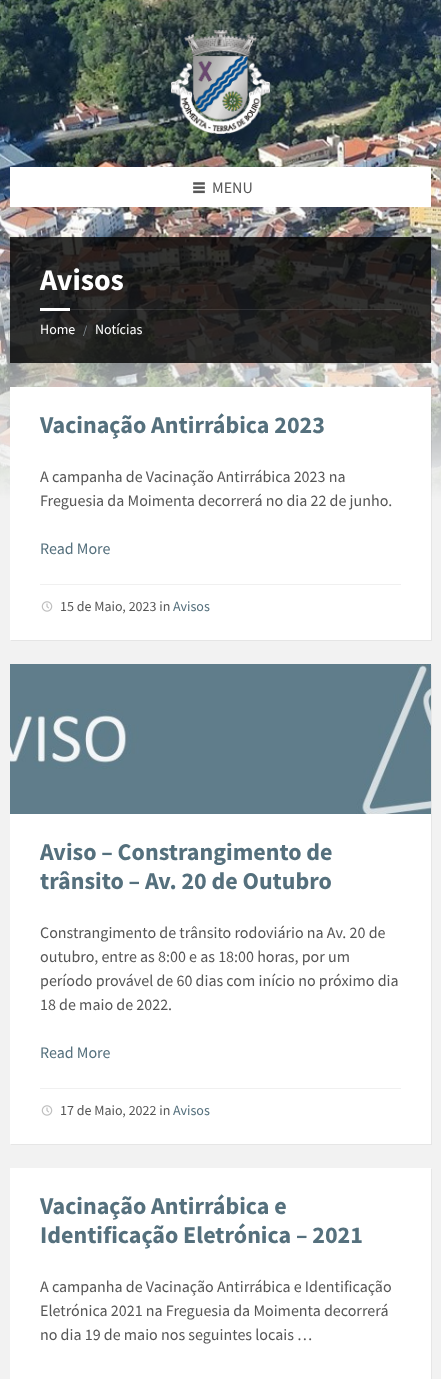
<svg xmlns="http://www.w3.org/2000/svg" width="441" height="1379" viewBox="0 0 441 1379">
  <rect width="100%" height="100%" fill="rgb(242,242,242)"/>
  <image x="0" y="0" width="441" height="500" href="pic1.png"/>
  <image x="171" y="30" width="99" height="104" href="pic2.png"/>
  <rect x="10" y="167" width="421" height="40" fill="rgb(255,255,255)"/>
  <image x="193" y="182" width="12" height="12" href="pic3.png"/>
  <text x="212" y="193" font-family="Source Sans Pro" font-size="16" fill="rgb(86,86,86)">MENU</text>
  <rect x="10" y="237" width="421" height="126" fill="rgba(0,0,0,0.8)"/>
  <text x="40" y="290" font-family="Source Sans Pro" font-size="30" font-weight="bold" fill="rgb(255,255,255)">Avisos</text>
  <rect x="70" y="309" width="331" height="1" fill="rgba(255,255,255,0.1)"/>
  <rect x="40" y="308" width="30" height="3" fill="rgb(255,255,255)"/>
  <text x="40" y="334" font-family="Source Sans Pro" font-size="14" fill="rgb(255,255,255)">Home</text>
  <text x="83" y="334" font-family="Source Sans Pro" font-size="12" fill="rgb(138,148,155)">/</text>
  <text x="95" y="334" font-family="Source Sans Pro" font-size="14" fill="rgb(255,255,255)">Notícias</text>
  <path d="M11 640V641H432V388H431V640Z" fill="rgba(0,0,0,0.05)"/>
  <rect x="10" y="387" width="421" height="253" fill="rgb(255,255,255)"/>
  <text x="40" y="433" font-family="Source Sans Pro" font-size="24" font-weight="bold" fill="rgb(85,112,125)">Vacinação Antirrábica 2023</text>
  <g font-family="Source Sans Pro" font-size="16" fill="rgb(86,86,86)">
    <text>
      <tspan x="40" y="482">A campanha de Vacinação Antirrábica 2023 na</tspan>
      <tspan x="40" y="506">Freguesia da Moimenta decorrerá no dia 22 de junho.</tspan>
    </text>
  </g>
  <text x="40" y="554" font-family="Source Sans Pro" font-size="16" fill="rgb(85,112,125)">Read More</text>
  <rect x="40" y="584" width="361" height="1" fill="rgb(240,240,240)"/>
  <image x="41" y="601" width="12" height="11" href="pic4.png"/>
  <text x="60" y="611" font-family="Source Sans Pro" font-size="14" fill="rgb(86,86,86)">15 de Maio, 2023 in</text>
  <text x="173" y="611" font-family="Source Sans Pro" font-size="14" fill="rgb(85,112,125)">Avisos</text>
  <path d="M11 1144V1145H432V665H431V1144Z" fill="rgb(230,230,230)"/>
  <rect x="10" y="814" width="421" height="330" fill="rgb(255,255,255)"/>
  <image x="10" y="664" width="421" height="150" href="pic5.png"/>
  <g font-family="Source Sans Pro" font-size="24" font-weight="bold" fill="rgb(85,112,125)">
    <text>
      <tspan x="40" y="860">Aviso – Constrangimento de</tspan>
      <tspan x="40" y="889">trânsito – Av. 20 de Outubro</tspan>
    </text>
  </g>
  <g font-family="Source Sans Pro" font-size="16" fill="rgb(86,86,86)">
    <text>
      <tspan x="40" y="938">Constrangimento de trânsito rodoviário na Av. 20 de</tspan>
      <tspan x="40" y="962">outubro, entre as 8:00 e as 18:00 horas, por um</tspan>
      <tspan x="40" y="986">período provável de 60 dias com início no próximo dia</tspan>
      <tspan x="40" y="1010">18 de maio de 2022.</tspan>
    </text>
  </g>
  <text x="40" y="1058" font-family="Source Sans Pro" font-size="16" fill="rgb(85,112,125)">Read More</text>
  <rect x="40" y="1088" width="361" height="1" fill="rgb(240,240,240)"/>
  <image x="41" y="1105" width="12" height="11" href="pic4.png"/>
  <text x="60" y="1115" font-family="Source Sans Pro" font-size="14" fill="rgb(86,86,86)">17 de Maio, 2022 in</text>
  <text x="173" y="1115" font-family="Source Sans Pro" font-size="14" fill="rgb(85,112,125)">Avisos</text>
  <path d="M11 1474V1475H432V1169H431V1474Z" fill="rgb(230,230,230)"/>
  <rect x="10" y="1168" width="421" height="211" fill="rgb(255,255,255)"/>
  <g font-family="Source Sans Pro" font-size="24" font-weight="bold" fill="rgb(85,112,125)">
    <text>
      <tspan x="40" y="1214">Vacinação Antirrábica e</tspan>
      <tspan x="40" y="1243">Identificação Eletrónica – 2021</tspan>
    </text>
  </g>
  <g font-family="Source Sans Pro" font-size="16" fill="rgb(86,86,86)">
    <text>
      <tspan x="40" y="1292">A campanha de Vacinação Antirrábica e Identificação</tspan>
      <tspan x="40" y="1316">Eletrónica 2021 na Freguesia da Moimenta decorrerá</tspan>
      <tspan x="40" y="1340">no dia 19 de maio nos seguintes locais …</tspan>
    </text>
  </g>
</svg>
